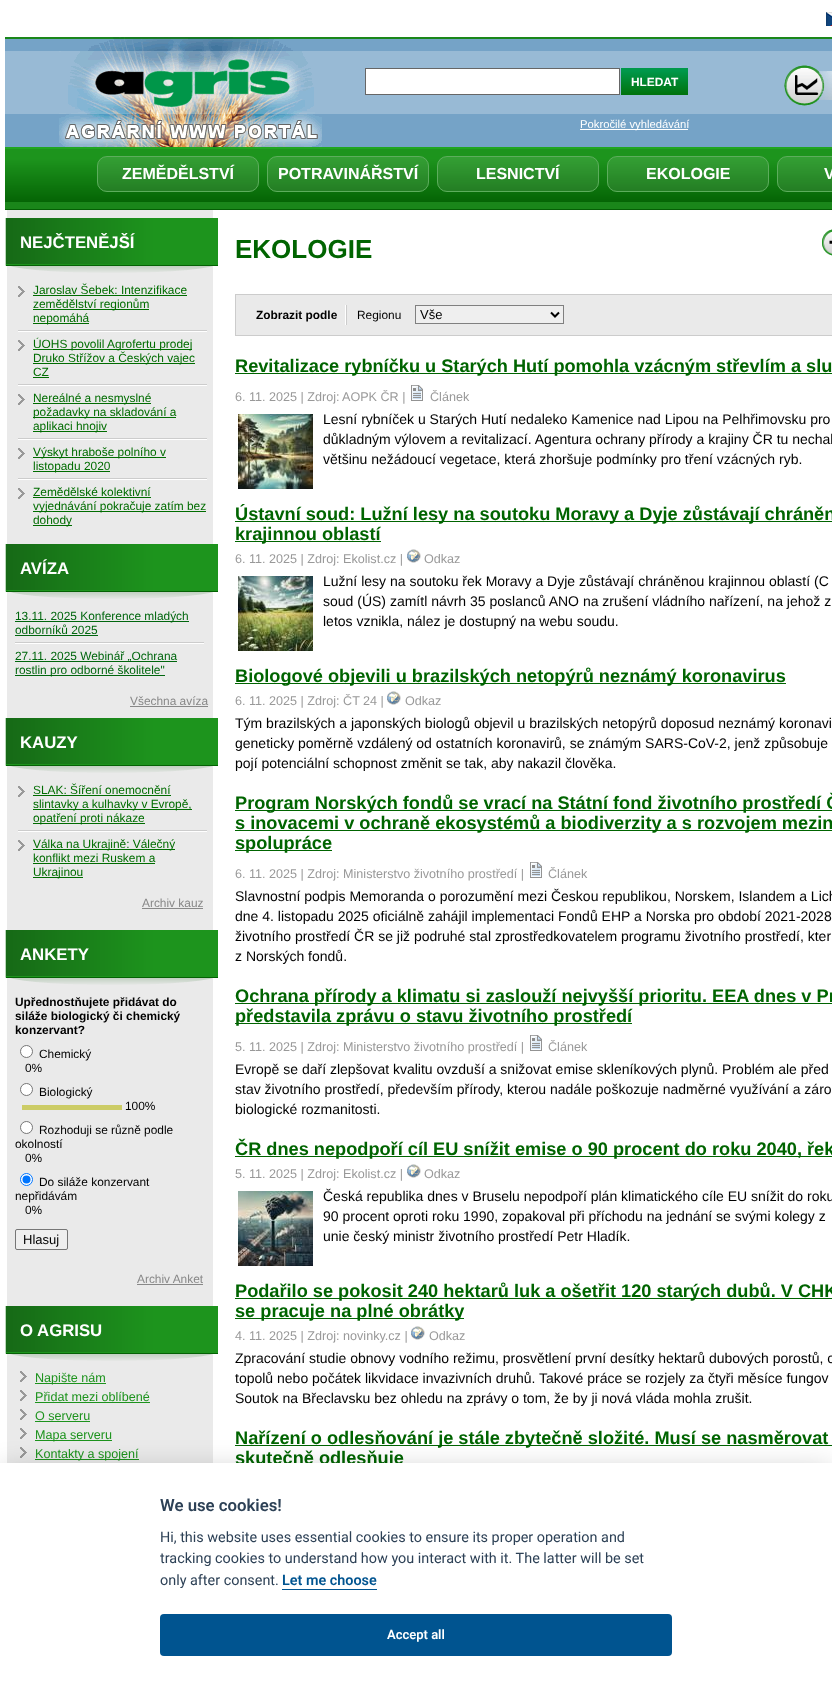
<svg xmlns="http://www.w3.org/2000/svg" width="832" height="1688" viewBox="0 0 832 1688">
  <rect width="100%" height="100%" fill="rgb(255,255,255)"/>
  <image x="5" y="37" width="827" height="173" href="pic1.png"/>
  <image x="826" y="12" width="6" height="14" href="pic2.png"/>
  <image x="59" y="37" width="263" height="110" href="pic3.png"/>
  <rect x="365.5" y="68.5" width="254" height="26" fill="rgb(255,255,255)" stroke="rgb(102,102,102)"/>
  <image x="621" y="68" width="67" height="27" href="pic4.png"/>
  <text x="631" y="86" font-family="Liberation Sans" font-size="11.9" font-weight="bold" fill="rgb(255,255,255)">HLEDAT</text>
  <rect x="580" y="129" width="108" height="1" fill="rgb(255,255,255)"/>
  <text x="580" y="128" font-family="Liberation Sans" font-size="11.25" fill="rgb(255,255,255)">Pokročilé vyhledávání</text>
  <image x="784" y="65" width="48" height="41" href="pic5.png"/>
  <image x="97" y="157" width="162" height="35" href="pic6.png"/>
  <rect x="97.5" y="156.5" width="161" height="35" rx="9.5" fill="none" stroke="rgb(93,173,93)"/>
  <text x="122" y="179" font-family="Liberation Sans" font-size="16" font-weight="bold" fill="rgb(255,255,255)">ZEMĚDĚLSTVÍ</text>
  <image x="267" y="157" width="162" height="35" href="pic7.png"/>
  <rect x="267.5" y="156.5" width="161" height="35" rx="9.5" fill="none" stroke="rgb(93,173,93)"/>
  <text x="278" y="179" font-family="Liberation Sans" font-size="16" font-weight="bold" fill="rgb(255,255,255)">POTRAVINÁŘSTVÍ</text>
  <image x="437" y="157" width="162" height="35" href="pic7.png"/>
  <rect x="437.5" y="156.5" width="161" height="35" rx="9.5" fill="none" stroke="rgb(93,173,93)"/>
  <text x="476" y="179" font-family="Liberation Sans" font-size="16" font-weight="bold" fill="rgb(255,255,255)">LESNICTVÍ</text>
  <image x="607" y="157" width="162" height="35" href="pic8.png"/>
  <rect x="607.5" y="156.5" width="161" height="35" rx="9.5" fill="none" stroke="rgb(93,173,93)"/>
  <text x="646" y="179" font-family="Liberation Sans" font-size="16" font-weight="bold" fill="rgb(255,255,255)">EKOLOGIE</text>
  <image x="777" y="157" width="55" height="35" href="pic9.png"/>
  <rect x="777.5" y="156.5" width="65" height="35" rx="9.5" fill="none" stroke="rgb(93,173,93)"/>
  <text x="824" y="179" font-family="Liberation Sans" font-size="16" font-weight="bold" fill="rgb(255,255,255)">V</text>
  <rect x="7" y="210" width="206" height="1253" fill="rgb(234,234,234)"/>
  <image x="5" y="218" width="213" height="55" href="pic10.png"/>
  <text x="20" y="248" font-family="Liberation Sans" font-size="16.75" font-weight="bold" fill="rgb(255,255,255)">NEJČTENĚJŠÍ</text>
  <image x="18" y="330" width="189" height="2" href="pic11.png"/>
  <image x="18" y="286" width="7" height="11" href="pic12.png"/>
  <text x="33" y="294" font-family="Liberation Sans" font-size="11.9" fill="rgb(0,108,0)">Jaroslav Šebek: Intenzifikace</text>
  <rect x="33" y="295" width="154" height="1" fill="rgb(0,108,0)"/>
  <rect x="33" y="309" width="116" height="1" fill="rgb(0,108,0)"/>
  <text x="33" y="308" font-family="Liberation Sans" font-size="11.9" fill="rgb(0,108,0)">zemědělství regionům</text>
  <rect x="33" y="323" width="56" height="1" fill="rgb(0,108,0)"/>
  <text x="33" y="322" font-family="Liberation Sans" font-size="11.9" fill="rgb(0,108,0)">nepomáhá</text>
  <image x="18" y="384" width="189" height="2" href="pic11.png"/>
  <image x="18" y="340" width="7" height="11" href="pic12.png"/>
  <rect x="33" y="349" width="159" height="1" fill="rgb(0,108,0)"/>
  <text x="33" y="348" font-family="Liberation Sans" font-size="11.9" fill="rgb(0,108,0)">ÚOHS povolil Agrofertu prodej</text>
  <rect x="33" y="363" width="162" height="1" fill="rgb(0,108,0)"/>
  <g font-family="Liberation Sans" font-size="11.9" fill="rgb(0,108,0)">
    <text>
      <tspan x="33" y="362">Druko Střížov a Českých vajec</tspan>
      <tspan x="33" y="376">CZ</tspan>
    </text>
  </g>
  <rect x="33" y="377" width="16" height="1" fill="rgb(0,108,0)"/>
  <image x="18" y="438" width="189" height="2" href="pic11.png"/>
  <image x="18" y="394" width="7" height="11" href="pic12.png"/>
  <rect x="33" y="403" width="118" height="1" fill="rgb(0,108,0)"/>
  <text x="33" y="402" font-family="Liberation Sans" font-size="11.9" fill="rgb(0,108,0)">Nereálné a nesmyslné</text>
  <rect x="33" y="417" width="143" height="1" fill="rgb(0,108,0)"/>
  <text x="33" y="416" font-family="Liberation Sans" font-size="11.9" fill="rgb(0,108,0)">požadavky na skladování a</text>
  <rect x="33" y="431" width="74" height="1" fill="rgb(0,108,0)"/>
  <text x="33" y="430" font-family="Liberation Sans" font-size="11.9" fill="rgb(0,108,0)">aplikaci hnojiv</text>
  <image x="18" y="478" width="189" height="2" href="pic11.png"/>
  <image x="18" y="448" width="7" height="11" href="pic12.png"/>
  <rect x="33" y="457" width="133" height="1" fill="rgb(0,108,0)"/>
  <text x="33" y="456" font-family="Liberation Sans" font-size="11.9" fill="rgb(0,108,0)">Výskyt hraboše polního v</text>
  <rect x="33" y="471" width="77" height="1" fill="rgb(0,108,0)"/>
  <text x="33" y="470" font-family="Liberation Sans" font-size="11.9" fill="rgb(0,108,0)">listopadu 2020</text>
  <image x="18" y="488" width="7" height="11" href="pic12.png"/>
  <text x="33" y="496" font-family="Liberation Sans" font-size="11.9" fill="rgb(0,108,0)">Zemědělské kolektivní</text>
  <rect x="33" y="497" width="118" height="1" fill="rgb(0,108,0)"/>
  <rect x="33" y="511" width="173" height="1" fill="rgb(0,108,0)"/>
  <text x="33" y="510" font-family="Liberation Sans" font-size="11.9" fill="rgb(0,108,0)">vyjednávání pokračuje zatím bez</text>
  <rect x="33" y="525" width="39" height="1" fill="rgb(0,108,0)"/>
  <text x="33" y="524" font-family="Liberation Sans" font-size="11.9" fill="rgb(0,108,0)">dohody</text>
  <image x="5" y="544" width="213" height="55" href="pic10.png"/>
  <text x="20" y="574" font-family="Liberation Sans" font-size="16.75" font-weight="bold" fill="rgb(255,255,255)">AVÍZA</text>
  <image x="15" y="642" width="189" height="2" href="pic11.png"/>
  <rect x="15" y="621" width="174" height="1" fill="rgb(0,102,14)"/>
  <g font-family="Liberation Sans" font-size="11.9" fill="rgb(0,102,14)">
    <text>
      <tspan x="15" y="620">13.11. 2025 Konference mladých</tspan>
      <tspan x="15" y="634">odborníků 2025</tspan>
    </text>
  </g>
  <rect x="15" y="635" width="83" height="1" fill="rgb(0,102,14)"/>
  <rect x="15" y="661" width="162" height="1" fill="rgb(0,102,14)"/>
  <text x="15" y="660" font-family="Liberation Sans" font-size="11.9" fill="rgb(0,102,14)">27.11. 2025 Webinář „Ochrana</text>
  <rect x="15" y="675" width="150" height="1" fill="rgb(0,102,14)"/>
  <text x="15" y="674" font-family="Liberation Sans" font-size="11.9" fill="rgb(0,102,14)">rostlin pro odborné školitele"</text>
  <text x="130" y="705" font-family="Liberation Sans" font-size="11.9" fill="rgb(136,136,136)">Všechna avíza</text>
  <rect x="130" y="706" width="78" height="1" fill="rgb(136,136,136)"/>
  <image x="5" y="718" width="213" height="55" href="pic10.png"/>
  <text x="20" y="748" font-family="Liberation Sans" font-size="16.75" font-weight="bold" fill="rgb(255,255,255)">KAUZY</text>
  <image x="18" y="830" width="189" height="2" href="pic11.png"/>
  <image x="18" y="786" width="7" height="11" href="pic12.png"/>
  <text x="33" y="794" font-family="Liberation Sans" font-size="11.9" fill="rgb(0,108,0)">SLAK: Šíření onemocnění</text>
  <rect x="33" y="795" width="138" height="1" fill="rgb(0,108,0)"/>
  <rect x="33" y="809" width="159" height="1" fill="rgb(0,108,0)"/>
  <text x="33" y="808" font-family="Liberation Sans" font-size="11.9" fill="rgb(0,108,0)">slintavky a kulhavky v Evropě,</text>
  <rect x="33" y="823" width="112" height="1" fill="rgb(0,108,0)"/>
  <text x="33" y="822" font-family="Liberation Sans" font-size="11.9" fill="rgb(0,108,0)">opatření proti nákaze</text>
  <image x="18" y="840" width="7" height="11" href="pic12.png"/>
  <rect x="33" y="849" width="142" height="1" fill="rgb(0,108,0)"/>
  <g font-family="Liberation Sans" font-size="11.9" fill="rgb(0,108,0)">
    <text>
      <tspan x="33" y="848">Válka na Ukrajině: Válečný</tspan>
      <tspan x="33" y="862">konflikt mezi Ruskem a</tspan>
    </text>
  </g>
  <rect x="33" y="863" width="122" height="1" fill="rgb(0,108,0)"/>
  <rect x="33" y="877" width="50" height="1" fill="rgb(0,108,0)"/>
  <text x="33" y="876" font-family="Liberation Sans" font-size="11.9" fill="rgb(0,108,0)">Ukrajinou</text>
  <text x="142" y="907" font-family="Liberation Sans" font-size="11.9" fill="rgb(136,136,136)">Archiv kauz</text>
  <rect x="142" y="908" width="61" height="1" fill="rgb(136,136,136)"/>
  <image x="5" y="930" width="213" height="55" href="pic10.png"/>
  <text x="20" y="960" font-family="Liberation Sans" font-size="16.75" font-weight="bold" fill="rgb(255,255,255)">ANKETY</text>
  <g font-family="Liberation Sans" font-size="11.9" font-weight="bold" fill="rgb(0,0,0)">
    <text>
      <tspan x="15" y="1006">Upřednostňujete přidávat do</tspan>
      <tspan x="15" y="1020">siláže biologický či chemický</tspan>
      <tspan x="15" y="1034">konzervant?</tspan>
    </text>
  </g>
  <circle cx="26.5" cy="1051.5" r="6" fill="rgb(255,255,255)" stroke="rgb(118,118,118)"/>
  <g font-family="Liberation Sans" font-size="11.9" fill="rgb(0,0,0)">
    <text x="39" y="1058">Chemický</text>
    <text x="25" y="1072">0%</text>
  </g>
  <circle cx="26.5" cy="1089.5" r="6" fill="rgb(255,255,255)" stroke="rgb(118,118,118)"/>
  <text x="39" y="1096" font-family="Liberation Sans" font-size="11.9" fill="rgb(0,0,0)">Biologický</text>
  <rect x="22" y="1105" width="100" height="5" fill="rgb(204,204,102)"/>
  <text x="125" y="1110" font-family="Liberation Sans" font-size="11.9" fill="rgb(0,0,0)">100%</text>
  <circle cx="26.5" cy="1127.5" r="6" fill="rgb(255,255,255)" stroke="rgb(118,118,118)"/>
  <g font-family="Liberation Sans" font-size="11.9" fill="rgb(0,0,0)">
    <text x="39" y="1134">Rozhoduji se různě podle</text>
    <text x="15" y="1148">okolností</text>
    <text x="25" y="1162">0%</text>
  </g>
  <circle cx="26.5" cy="1179.5" r="6" fill="rgb(255,255,255)" stroke="rgb(0,117,255)"/>
  <circle cx="26.5" cy="1179.5" r="4" fill="rgb(0,117,255)"/>
  <g font-family="Liberation Sans" font-size="11.9" fill="rgb(0,0,0)">
    <text x="39" y="1186">Do siláže konzervant</text>
    <text x="15" y="1200">nepřidávám</text>
    <text x="25" y="1214">0%</text>
  </g>
  <rect x="15.5" y="1229.5" width="52" height="20" rx="1.5" fill="rgb(239,239,239)" stroke="rgb(118,118,118)"/>
  <text x="23" y="1244" font-family="Liberation Sans" font-size="13" fill="rgb(0,0,0)">Hlasuj</text>
  <text x="137" y="1283" font-family="Liberation Sans" font-size="11.9" fill="rgb(136,136,136)">Archiv Anket</text>
  <rect x="137" y="1284" width="66" height="1" fill="rgb(136,136,136)"/>
  <image x="5" y="1306" width="213" height="55" href="pic10.png"/>
  <text x="20" y="1336" font-family="Liberation Sans" font-size="16.75" font-weight="bold" fill="rgb(255,255,255)">O AGRISU</text>
  <image x="20" y="1371" width="7" height="11" href="pic12.png"/>
  <rect x="35" y="1383" width="71" height="1" fill="rgb(29,147,29)"/>
  <text x="35" y="1382" font-family="Liberation Sans" font-size="12.6" fill="rgb(29,147,29)">Napište nám</text>
  <image x="20" y="1390" width="7" height="11" href="pic12.png"/>
  <text x="35" y="1401" font-family="Liberation Sans" font-size="12.6" fill="rgb(29,147,29)">Přidat mezi oblíbené</text>
  <rect x="35" y="1402" width="115" height="1" fill="rgb(29,147,29)"/>
  <image x="20" y="1409" width="7" height="11" href="pic12.png"/>
  <text x="35" y="1420" font-family="Liberation Sans" font-size="12.6" fill="rgb(29,147,29)">O serveru</text>
  <rect x="35" y="1421" width="55" height="1" fill="rgb(29,147,29)"/>
  <image x="20" y="1428" width="7" height="11" href="pic12.png"/>
  <rect x="35" y="1440" width="77" height="1" fill="rgb(29,147,29)"/>
  <text x="35" y="1439" font-family="Liberation Sans" font-size="12.6" fill="rgb(29,147,29)">Mapa serveru</text>
  <image x="20" y="1447" width="7" height="11" href="pic12.png"/>
  <rect x="35" y="1459" width="104" height="1" fill="rgb(29,147,29)"/>
  <text x="35" y="1458" font-family="Liberation Sans" font-size="12.6" fill="rgb(29,147,29)">Kontakty a spojení</text>
  <text x="235" y="258" font-family="Liberation Sans" font-size="26" font-weight="bold" fill="rgb(0,100,0)">EKOLOGIE</text>
  <image x="822" y="229" width="10" height="27" href="pic13.png"/>
  <rect x="235.5" y="294.5" width="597" height="41" fill="rgb(234,234,234)" stroke="rgb(204,204,204)"/>
  <image x="345" y="305" width="2" height="20" href="pic14.png"/>
  <text x="256" y="319" font-family="Liberation Sans" font-size="11.9" font-weight="bold" fill="rgb(0,0,0)">Zobrazit podle</text>
  <text x="357" y="319" font-family="Liberation Sans" font-size="11.9" fill="rgb(0,0,0)">Regionu</text>
  <rect x="415.5" y="305.5" width="148" height="18" fill="rgb(239,239,239)" stroke="rgb(128,128,128)"/>
  <path d="M551 312.5L555 316.5L559 312.5" fill="none" stroke="rgb(0,0,0)" stroke-width="2"/>
  <text x="420" y="319" font-family="Liberation Sans" font-size="13" fill="rgb(0,0,0)">Vše</text>
  <rect x="235" y="373" width="597" height="1" fill="rgb(0,100,0)"/>
  <text x="235" y="372" font-family="Liberation Sans" font-size="18.2" font-weight="bold" fill="rgb(0,100,0)">Revitalizace rybníčku u Starých Hutí pomohla vzácným střevlím a slu</text>
  <g font-family="Liberation Sans" font-size="12.6" fill="rgb(153,153,153)">
    <text x="235" y="401">6. 11. 2025 | Zdroj:</text>
    <text x="342" y="401">AOPK ČR |</text>
  </g>
  <image x="411" y="385" width="12" height="16" href="pic15.png"/>
  <text x="430" y="401" font-family="Liberation Sans" font-size="12.6" fill="rgb(153,153,153)">Článek</text>
  <image x="238" y="414" width="75" height="75" href="pic16.png"/>
  <g font-family="Liberation Sans" font-size="14" fill="rgb(0,0,0)">
    <text>
      <tspan x="323" y="424">Lesní rybníček u Starých Hutí nedaleko Kamenice nad Lipou na Pelhřimovsku pro</tspan>
      <tspan x="323" y="444">důkladným výlovem a revitalizací. Agentura ochrany přírody a krajiny ČR tu nechal</tspan>
      <tspan x="323" y="464">většinu nežádoucí vegetace, která zhoršuje podmínky pro tření vzácných ryb.</tspan>
    </text>
  </g>
  <rect x="235" y="521" width="597" height="1" fill="rgb(0,100,0)"/>
  <text x="235" y="520" font-family="Liberation Sans" font-size="18.2" font-weight="bold" fill="rgb(0,100,0)">Ústavní soud: Lužní lesy na soutoku Moravy a Dyje zůstávají chráněn</text>
  <rect x="235" y="541" width="146" height="1" fill="rgb(0,100,0)"/>
  <text x="235" y="540" font-family="Liberation Sans" font-size="18.2" font-weight="bold" fill="rgb(0,100,0)">krajinnou oblastí</text>
  <text x="235" y="563" font-family="Liberation Sans" font-size="12.6" fill="rgb(153,153,153)">6. 11. 2025 | Zdroj: Ekolist.cz |</text>
  <image x="407" y="549" width="14" height="14" href="pic17.png"/>
  <text x="424" y="563" font-family="Liberation Sans" font-size="12.6" fill="rgb(153,153,153)">Odkaz</text>
  <image x="238" y="576" width="75" height="75" href="pic18.png"/>
  <g font-family="Liberation Sans" font-size="14" fill="rgb(0,0,0)">
    <text>
      <tspan x="323" y="586">Lužní lesy na soutoku řek Moravy a Dyje zůstávají chráněnou krajinnou oblastí (C</tspan>
      <tspan x="323" y="606">soud (ÚS) zamítl návrh 35 poslanců ANO na zrušení vládního nařízení, na jehož z</tspan>
      <tspan x="323" y="626">letos vznikla, nález je dostupný na webu soudu.</tspan>
    </text>
  </g>
  <rect x="235" y="683" width="551" height="1" fill="rgb(0,100,0)"/>
  <text x="235" y="682" font-family="Liberation Sans" font-size="18.2" font-weight="bold" fill="rgb(0,100,0)">Biologové objevili u brazilských netopýrů neznámý koronavirus</text>
  <text x="235" y="705" font-family="Liberation Sans" font-size="12.6" fill="rgb(153,153,153)">6. 11. 2025 | Zdroj: ČT 24 |</text>
  <image x="387" y="691" width="14" height="14" href="pic17.png"/>
  <text x="405" y="705" font-family="Liberation Sans" font-size="12.6" fill="rgb(153,153,153)">Odkaz</text>
  <g font-family="Liberation Sans" font-size="14" fill="rgb(0,0,0)">
    <text>
      <tspan x="235" y="728">Tým brazilských a japonských biologů objevil u brazilských netopýrů doposud neznámý koronavi</tspan>
      <tspan x="235" y="748">geneticky poměrně vzdálený od ostatních koronavirů, se známým SARS-CoV-2, jenž způsobuje</tspan>
      <tspan x="235" y="768">pojí potenciální schopnost změnit se tak, aby nakazil člověka.</tspan>
    </text>
  </g>
  <rect x="235" y="810" width="597" height="1" fill="rgb(0,100,0)"/>
  <text x="235" y="809" font-family="Liberation Sans" font-size="18.2" font-weight="bold" fill="rgb(0,100,0)">Program Norských fondů se vrací na Státní fond životního prostředí Č</text>
  <rect x="235" y="830" width="597" height="1" fill="rgb(0,100,0)"/>
  <text x="235" y="829" font-family="Liberation Sans" font-size="18.2" font-weight="bold" fill="rgb(0,100,0)">s inovacemi v ochraně ekosystémů a biodiverzity a s rozvojem mezin</text>
  <rect x="235" y="850" width="97" height="1" fill="rgb(0,100,0)"/>
  <text x="235" y="849" font-family="Liberation Sans" font-size="18.2" font-weight="bold" fill="rgb(0,100,0)">spolupráce</text>
  <text x="235" y="878" font-family="Liberation Sans" font-size="12.6" fill="rgb(153,153,153)">6. 11. 2025 | Zdroj: Ministerstvo životního prostředí |</text>
  <image x="530" y="862" width="12" height="16" href="pic15.png"/>
  <text x="548" y="878" font-family="Liberation Sans" font-size="12.6" fill="rgb(153,153,153)">Článek</text>
  <g font-family="Liberation Sans" font-size="14" fill="rgb(0,0,0)">
    <text>
      <tspan x="235" y="901">Slavnostní podpis Memoranda o porozumění mezi Českou republikou, Norskem, Islandem a Lich</tspan>
      <tspan x="235" y="921">dne 4. listopadu 2025 oficiálně zahájil implementaci Fondů EHP a Norska pro období 2021-2028</tspan>
      <tspan x="235" y="941">životního prostředí ČR se již podruhé stal zprostředkovatelem programu životního prostředí, kter</tspan>
      <tspan x="235" y="961">z Norských fondů.</tspan>
    </text>
  </g>
  <rect x="235" y="1003" width="597" height="1" fill="rgb(0,100,0)"/>
  <text x="235" y="1002" font-family="Liberation Sans" font-size="18.2" font-weight="bold" fill="rgb(0,100,0)">Ochrana přírody a klimatu si zaslouží nejvyšší prioritu. EEA dnes v Pr</text>
  <rect x="235" y="1023" width="397" height="1" fill="rgb(0,100,0)"/>
  <text x="235" y="1022" font-family="Liberation Sans" font-size="18.2" font-weight="bold" fill="rgb(0,100,0)">představila zprávu o stavu životního prostředí</text>
  <text x="235" y="1051" font-family="Liberation Sans" font-size="12.6" fill="rgb(153,153,153)">5. 11. 2025 | Zdroj: Ministerstvo životního prostředí |</text>
  <image x="530" y="1035" width="12" height="16" href="pic15.png"/>
  <text x="548" y="1051" font-family="Liberation Sans" font-size="12.6" fill="rgb(153,153,153)">Článek</text>
  <g font-family="Liberation Sans" font-size="14" fill="rgb(0,0,0)">
    <text>
      <tspan x="235" y="1074">Evropě se daří zlepšovat kvalitu ovzduší a snižovat emise skleníkových plynů. Problém ale před</tspan>
      <tspan x="235" y="1094">stav životního prostředí, především přírody, kterou nadále poškozuje nadměrné využívání a záro</tspan>
      <tspan x="235" y="1114">biologické rozmanitosti.</tspan>
    </text>
  </g>
  <rect x="235" y="1156" width="597" height="1" fill="rgb(0,100,0)"/>
  <text x="235" y="1155" font-family="Liberation Sans" font-size="18.2" font-weight="bold" fill="rgb(0,100,0)">ČR dnes nepodpoří cíl EU snížit emise o 90 procent do roku 2040, řek</text>
  <text x="235" y="1178" font-family="Liberation Sans" font-size="12.6" fill="rgb(153,153,153)">5. 11. 2025 | Zdroj: Ekolist.cz |</text>
  <image x="407" y="1164" width="14" height="14" href="pic17.png"/>
  <text x="424" y="1178" font-family="Liberation Sans" font-size="12.6" fill="rgb(153,153,153)">Odkaz</text>
  <image x="238" y="1191" width="75" height="75" href="pic19.png"/>
  <g font-family="Liberation Sans" font-size="14" fill="rgb(0,0,0)">
    <text>
      <tspan x="323" y="1201">Česká republika dnes v Bruselu nepodpoří plán klimatického cíle EU snížit do roku</tspan>
      <tspan x="323" y="1221">90 procent oproti roku 1990, zopakoval při příchodu na jednání se svými kolegy z</tspan>
      <tspan x="323" y="1241">unie český ministr životního prostředí Petr Hladík.</tspan>
    </text>
  </g>
  <rect x="235" y="1298" width="597" height="1" fill="rgb(0,100,0)"/>
  <text x="235" y="1297" font-family="Liberation Sans" font-size="18.2" font-weight="bold" fill="rgb(0,100,0)">Podařilo se pokosit 240 hektarů luk a ošetřit 120 starých dubů. V CHK</text>
  <rect x="235" y="1318" width="229" height="1" fill="rgb(0,100,0)"/>
  <text x="235" y="1317" font-family="Liberation Sans" font-size="18.2" font-weight="bold" fill="rgb(0,100,0)">se pracuje na plné obrátky</text>
  <text x="235" y="1340" font-family="Liberation Sans" font-size="12.6" fill="rgb(153,153,153)">4. 11. 2025 | Zdroj: novinky.cz |</text>
  <image x="411" y="1326" width="14" height="14" href="pic17.png"/>
  <text x="429" y="1340" font-family="Liberation Sans" font-size="12.6" fill="rgb(153,153,153)">Odkaz</text>
  <g font-family="Liberation Sans" font-size="14" fill="rgb(0,0,0)">
    <text>
      <tspan x="235" y="1363">Zpracování studie obnovy vodního režimu, prosvětlení první desítky hektarů dubových porostů, o</tspan>
      <tspan x="235" y="1383">topolů nebo počátek likvidace invazivních druhů. Takové práce se rozjely za čtyři měsíce fungov</tspan>
      <tspan x="235" y="1403">Soutok na Břeclavsku bez ohledu na zprávy o tom, že by ji nová vláda mohla zrušit.</tspan>
    </text>
  </g>
  <rect x="235" y="1445" width="597" height="1" fill="rgb(0,100,0)"/>
  <g font-family="Liberation Sans" font-size="18.2" font-weight="bold" fill="rgb(0,100,0)">
    <text>
      <tspan x="235" y="1444">Nařízení o odlesňování je stále zbytečně složité. Musí se nasměrovat</tspan>
      <tspan x="235" y="1464">skutečně odlesňuje</tspan>
    </text>
  </g>
  <rect x="0" y="1473" width="832" height="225" fill="rgba(2,2,3,0.28)" filter="blur(15px)"/>
  <rect x="0" y="1463" width="832" height="225" fill="rgb(255,255,255)"/>
  <text x="160" y="1511" font-family="Roboto" font-size="16.75" font-weight="600" fill="rgb(45,65,86)">We use cookies!</text>
  <g font-family="Roboto" font-size="14.4" fill="rgb(45,65,86)">
    <text>
      <tspan x="160" y="1542">Hi, this website uses essential cookies to ensure its proper operation and</tspan>
      <tspan x="160" y="1563">tracking cookies to understand how you interact with it. The latter will be set</tspan>
      <tspan x="160" y="1585">only after consent.</tspan>
    </text>
  </g>
  <text x="282" y="1585" font-family="Roboto" font-size="14.4" font-weight="600" fill="rgb(0,84,144)">Let me choose</text>
  <rect x="282" y="1589" width="95" height="1" fill="rgb(0,84,144)"/>
  <rect x="160" y="1614" width="512" height="42" rx="4" fill="rgb(0,84,144)"/>
  <text x="387" y="1639" font-family="Roboto" font-size="13" font-weight="600" fill="rgb(255,255,255)">Accept all</text>
</svg>
